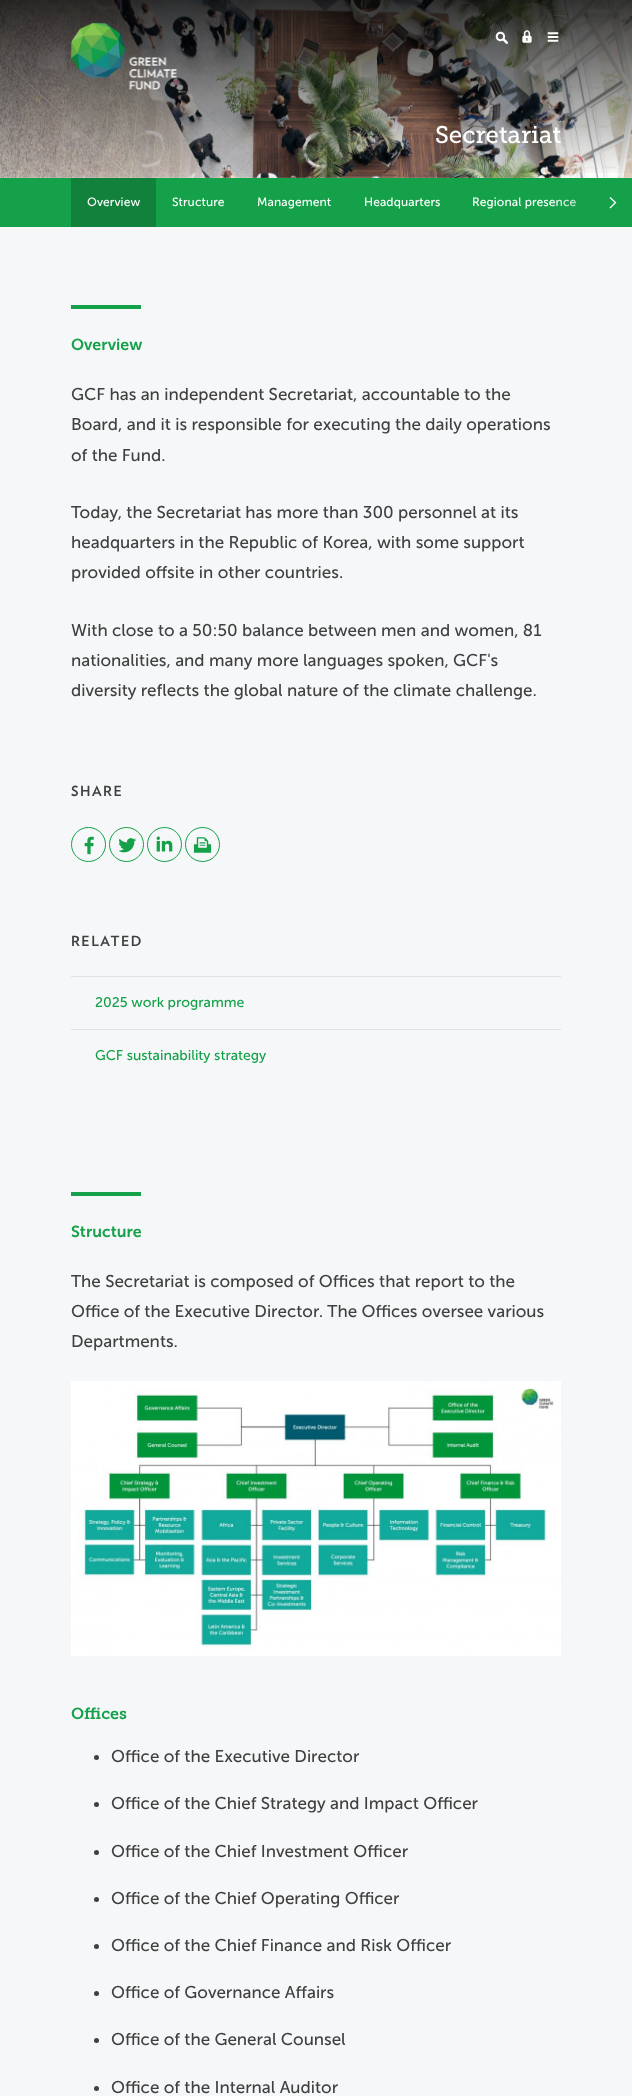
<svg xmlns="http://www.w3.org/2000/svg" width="632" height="2096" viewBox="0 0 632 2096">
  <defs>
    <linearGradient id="g1" gradientUnits="userSpaceOnUse" x1="316" y1="0" x2="316" y2="178"><stop offset="0" stop-color="rgb(0,0,0)" stop-opacity="0.8"/><stop offset="1" stop-color="rgb(0,0,0)" stop-opacity="0"/></linearGradient>
    <clipPath id="clip1"><rect x="56" y="178" width="520" height="49"/></clipPath>
    <linearGradient id="g2" gradientUnits="userSpaceOnUse" x1="552" y1="203" x2="632" y2="203"><stop offset="0" stop-color="rgb(21,161,74)" stop-opacity="0"/><stop offset="0.6" stop-color="rgb(21,161,74)" stop-opacity="0.5"/><stop offset="1" stop-color="rgb(21,161,74)"/></linearGradient>
  </defs>
  <rect width="100%" height="100%" fill="rgb(246,247,248)"/>
  <image x="0" y="0" width="632" height="178" href="pic6.png"/>
  <rect x="0" y="0" width="632" height="173" fill="url(#g1)"/>
  <image x="71" y="23" width="55" height="55" href="pic1.png"/>
  <image x="129" y="57" width="48" height="33" href="pic2.png"/>
  <image x="495" y="31" width="13" height="13" href="pic3.png"/>
  <image x="522" y="30" width="10" height="13" href="pic4.png"/>
  <image x="547" y="32" width="12" height="10" href="pic5.png"/>
  <text x="435" y="143" font-family="'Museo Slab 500'" font-size="24" fill="rgb(255,255,255)">Secretariat</text>
  <rect x="0" y="178" width="632" height="49" fill="rgb(21,161,74)"/>
  <rect x="71" y="178" width="85" height="49" fill="rgb(17,129,59)"/>
  <g font-family="'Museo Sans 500'" font-size="12" letter-spacing="0.1" fill="rgb(255,255,255)">
    <text x="87" y="206">Overview</text>
    <text x="172" y="206">Structure</text>
    <text x="257" y="206">Management</text>
    <text x="364" y="206">Headquarters</text>
  </g>
  <g clip-path="url(#clip1)">
    <text x="472" y="206" font-family="'Museo Sans 500'" font-size="12" letter-spacing="0.1" fill="rgb(255,255,255)">Regional presence</text>
  </g>
  <rect x="554" y="199" width="22" height="8" fill="url(#g2)"/>
  <path d="M610 197.5L615.5 202.5L610 208" fill="none" stroke="rgb(255,255,255)" stroke-width="1.3"/>
  <rect x="71" y="305" width="70" height="4" fill="rgb(21,161,74)"/>
  <text x="71" y="350" font-family="'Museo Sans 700'" font-size="16" font-weight="600" fill="rgb(21,161,74)">Overview</text>
  <g font-family="'Museo Sans 500'" font-size="17" fill="rgb(64,64,64)">
    <text>
      <tspan x="71" y="400">GCF has an independent Secretariat, accountable to the</tspan>
      <tspan x="71" y="430">Board, and it is responsible for executing the daily operations</tspan>
      <tspan x="71" y="461">of the Fund.</tspan>
    </text>
    <text>
      <tspan x="71" y="518">Today, the Secretariat has more than 300 personnel at its</tspan>
      <tspan x="71" y="548">headquarters in the Republic of Korea, with some support</tspan>
      <tspan x="71" y="578">provided offsite in other countries.</tspan>
    </text>
    <text>
      <tspan x="71" y="636">With close to a 50:50 balance between men and women, 81</tspan>
      <tspan x="71" y="666">nationalities, and many more languages spoken, GCF's</tspan>
      <tspan x="71" y="696">diversity reflects the global nature of the climate challenge.</tspan>
    </text>
  </g>
  <text x="71" y="796" font-family="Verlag" font-size="14" font-weight="bold" letter-spacing="1.5" fill="rgb(64,64,64)">SHARE</text>
  <circle cx="88.5" cy="844.5" r="17" fill="none" stroke="rgb(21,161,74)"/>
  <image x="84" y="836" width="10" height="19" href="pic7.png"/>
  <circle cx="126.5" cy="844.5" r="17" fill="none" stroke="rgb(21,161,74)"/>
  <image x="118" y="838" width="19" height="15" href="pic8.png"/>
  <circle cx="164.5" cy="844.5" r="17" fill="none" stroke="rgb(21,161,74)"/>
  <image x="156" y="836" width="17" height="16" href="pic9.png"/>
  <circle cx="202.5" cy="844.5" r="17" fill="none" stroke="rgb(21,161,74)"/>
  <image x="193" y="837" width="19" height="16" href="pic10.png"/>
  <text x="71" y="946" font-family="Verlag" font-size="14" font-weight="bold" letter-spacing="1.5" fill="rgb(64,64,64)">RELATED</text>
  <rect x="71" y="976" width="490" height="1" fill="rgb(222,226,230)"/>
  <text x="95" y="1007" font-family="'Museo Sans 500'" font-size="14" fill="rgb(21,161,74)">2025 work programme</text>
  <rect x="71" y="1029" width="490" height="1" fill="rgb(222,226,230)"/>
  <text x="95" y="1060" font-family="'Museo Sans 500'" font-size="14" fill="rgb(21,161,74)">GCF sustainability strategy</text>
  <rect x="71" y="1192" width="70" height="4" fill="rgb(21,161,74)"/>
  <text x="71" y="1237" font-family="'Museo Sans 700'" font-size="16" font-weight="600" fill="rgb(21,161,74)">Structure</text>
  <g font-family="'Museo Sans 500'" font-size="17" fill="rgb(64,64,64)">
    <text>
      <tspan x="71" y="1287">The Secretariat is composed of Offices that report to the</tspan>
      <tspan x="71" y="1317">Office of the Executive Director. The Offices oversee various</tspan>
      <tspan x="71" y="1347">Departments.</tspan>
    </text>
  </g>
  <image x="71" y="1381" width="490" height="275" href="pic11.png"/>
  <text x="71" y="1719" font-family="'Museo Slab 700'" font-size="16" font-weight="600" fill="rgb(21,161,74)">Offices</text>
  <circle cx="96.5" cy="1757.5" r="2.5" fill="rgb(64,64,64)"/>
  <text x="111" y="1762" font-family="'Museo Sans 500'" font-size="17" fill="rgb(64,64,64)">Office of the Executive Director</text>
  <circle cx="96.5" cy="1804.5" r="2.5" fill="rgb(64,64,64)"/>
  <text x="111" y="1809" font-family="'Museo Sans 500'" font-size="17" fill="rgb(64,64,64)">Office of the Chief Strategy and Impact Officer</text>
  <circle cx="96.5" cy="1852.5" r="2.5" fill="rgb(64,64,64)"/>
  <text x="111" y="1857" font-family="'Museo Sans 500'" font-size="17" fill="rgb(64,64,64)">Office of the Chief Investment Officer</text>
  <circle cx="96.5" cy="1899.5" r="2.5" fill="rgb(64,64,64)"/>
  <text x="111" y="1904" font-family="'Museo Sans 500'" font-size="17" fill="rgb(64,64,64)">Office of the Chief Operating Officer</text>
  <circle cx="96.5" cy="1946.5" r="2.5" fill="rgb(64,64,64)"/>
  <text x="111" y="1951" font-family="'Museo Sans 500'" font-size="17" fill="rgb(64,64,64)">Office of the Chief Finance and Risk Officer</text>
  <circle cx="96.5" cy="1993.5" r="2.5" fill="rgb(64,64,64)"/>
  <text x="111" y="1998" font-family="'Museo Sans 500'" font-size="17" fill="rgb(64,64,64)">Office of Governance Affairs</text>
  <circle cx="96.5" cy="2040.5" r="2.5" fill="rgb(64,64,64)"/>
  <text x="111" y="2045" font-family="'Museo Sans 500'" font-size="17" fill="rgb(64,64,64)">Office of the General Counsel</text>
  <circle cx="96.5" cy="2088.5" r="2.5" fill="rgb(64,64,64)"/>
  <text x="111" y="2093" font-family="'Museo Sans 500'" font-size="17" fill="rgb(64,64,64)">Office of the Internal Auditor</text>
</svg>
